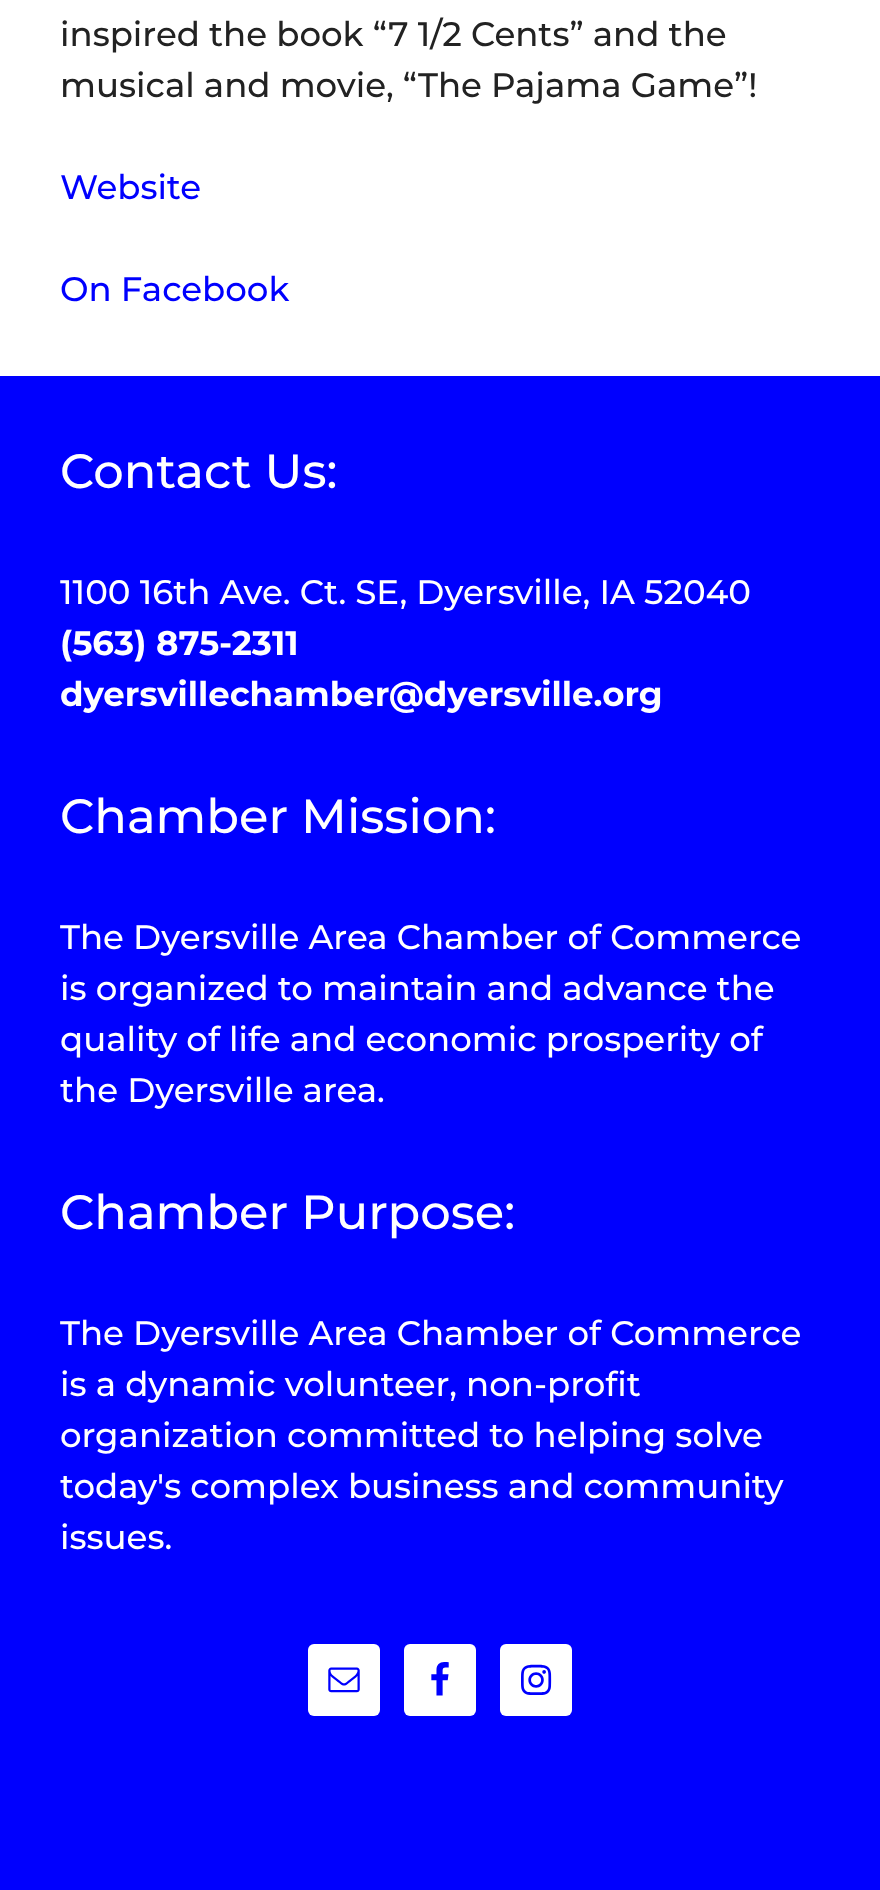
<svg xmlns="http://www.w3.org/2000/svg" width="880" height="1890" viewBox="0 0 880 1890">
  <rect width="100%" height="100%" fill="rgb(255,255,255)"/>
  <g font-family="Montserrat" font-size="34" font-weight="500" fill="rgb(34,34,34)">
    <text>
      <tspan x="60" y="46">inspired the book “7 1/2 Cents” and the</tspan>
      <tspan x="60" y="97">musical and movie, “The Pajama Game”!</tspan>
    </text>
  </g>
  <g font-family="Montserrat" font-size="34" font-weight="500" fill="rgb(0,0,254)">
    <text x="60" y="199">Website</text>
    <text x="60" y="301">On Facebook</text>
  </g>
  <rect x="0" y="376" width="880" height="1514" fill="rgb(0,0,254)"/>
  <text x="60" y="488" font-family="Montserrat" font-size="48" font-weight="500" fill="rgb(255,255,255)">Contact Us:</text>
  <text x="60" y="604" font-family="Montserrat" font-size="34" font-weight="500" fill="rgb(255,255,255)">1100 16th Ave. Ct. SE, Dyersville, IA 52040</text>
  <g font-family="Montserrat" font-size="34" font-weight="bold" fill="rgb(255,255,255)">
    <text>
      <tspan x="60" y="655">(563) 875-2311</tspan>
      <tspan x="60" y="706">dyersvillechamber@dyersville.org</tspan>
    </text>
  </g>
  <text x="60" y="833" font-family="Montserrat" font-size="48" font-weight="500" fill="rgb(255,255,255)">Chamber Mission:</text>
  <g font-family="Montserrat" font-size="34" font-weight="500" fill="rgb(255,255,255)">
    <text>
      <tspan x="60" y="949">The Dyersville Area Chamber of Commerce</tspan>
      <tspan x="60" y="1000">is organized to maintain and advance the</tspan>
      <tspan x="60" y="1051">quality of life and economic prosperity of</tspan>
      <tspan x="60" y="1102">the Dyersville area.</tspan>
    </text>
  </g>
  <text x="60" y="1229" font-family="Montserrat" font-size="48" font-weight="500" fill="rgb(255,255,255)">Chamber Purpose:</text>
  <g font-family="Montserrat" font-size="34" font-weight="500" fill="rgb(255,255,255)">
    <text>
      <tspan x="60" y="1345">The Dyersville Area Chamber of Commerce</tspan>
      <tspan x="60" y="1396">is a dynamic volunteer, non-profit</tspan>
      <tspan x="60" y="1447">organization committed to helping solve</tspan>
      <tspan x="60" y="1498">today's complex business and community</tspan>
      <tspan x="60" y="1549">issues.</tspan>
    </text>
  </g>
  <rect x="308" y="1644" width="72" height="72" rx="6" fill="rgb(255,255,255)"/>
  <image x="328" y="1667" width="32" height="26" href="pic1.png"/>
  <rect x="404" y="1644" width="72" height="72" rx="6" fill="rgb(255,255,255)"/>
  <image x="431" y="1662" width="18" height="34" href="pic2.png"/>
  <rect x="500" y="1644" width="72" height="72" rx="6" fill="rgb(255,255,255)"/>
  <image x="521" y="1664" width="31" height="31" href="pic3.png"/>
</svg>
